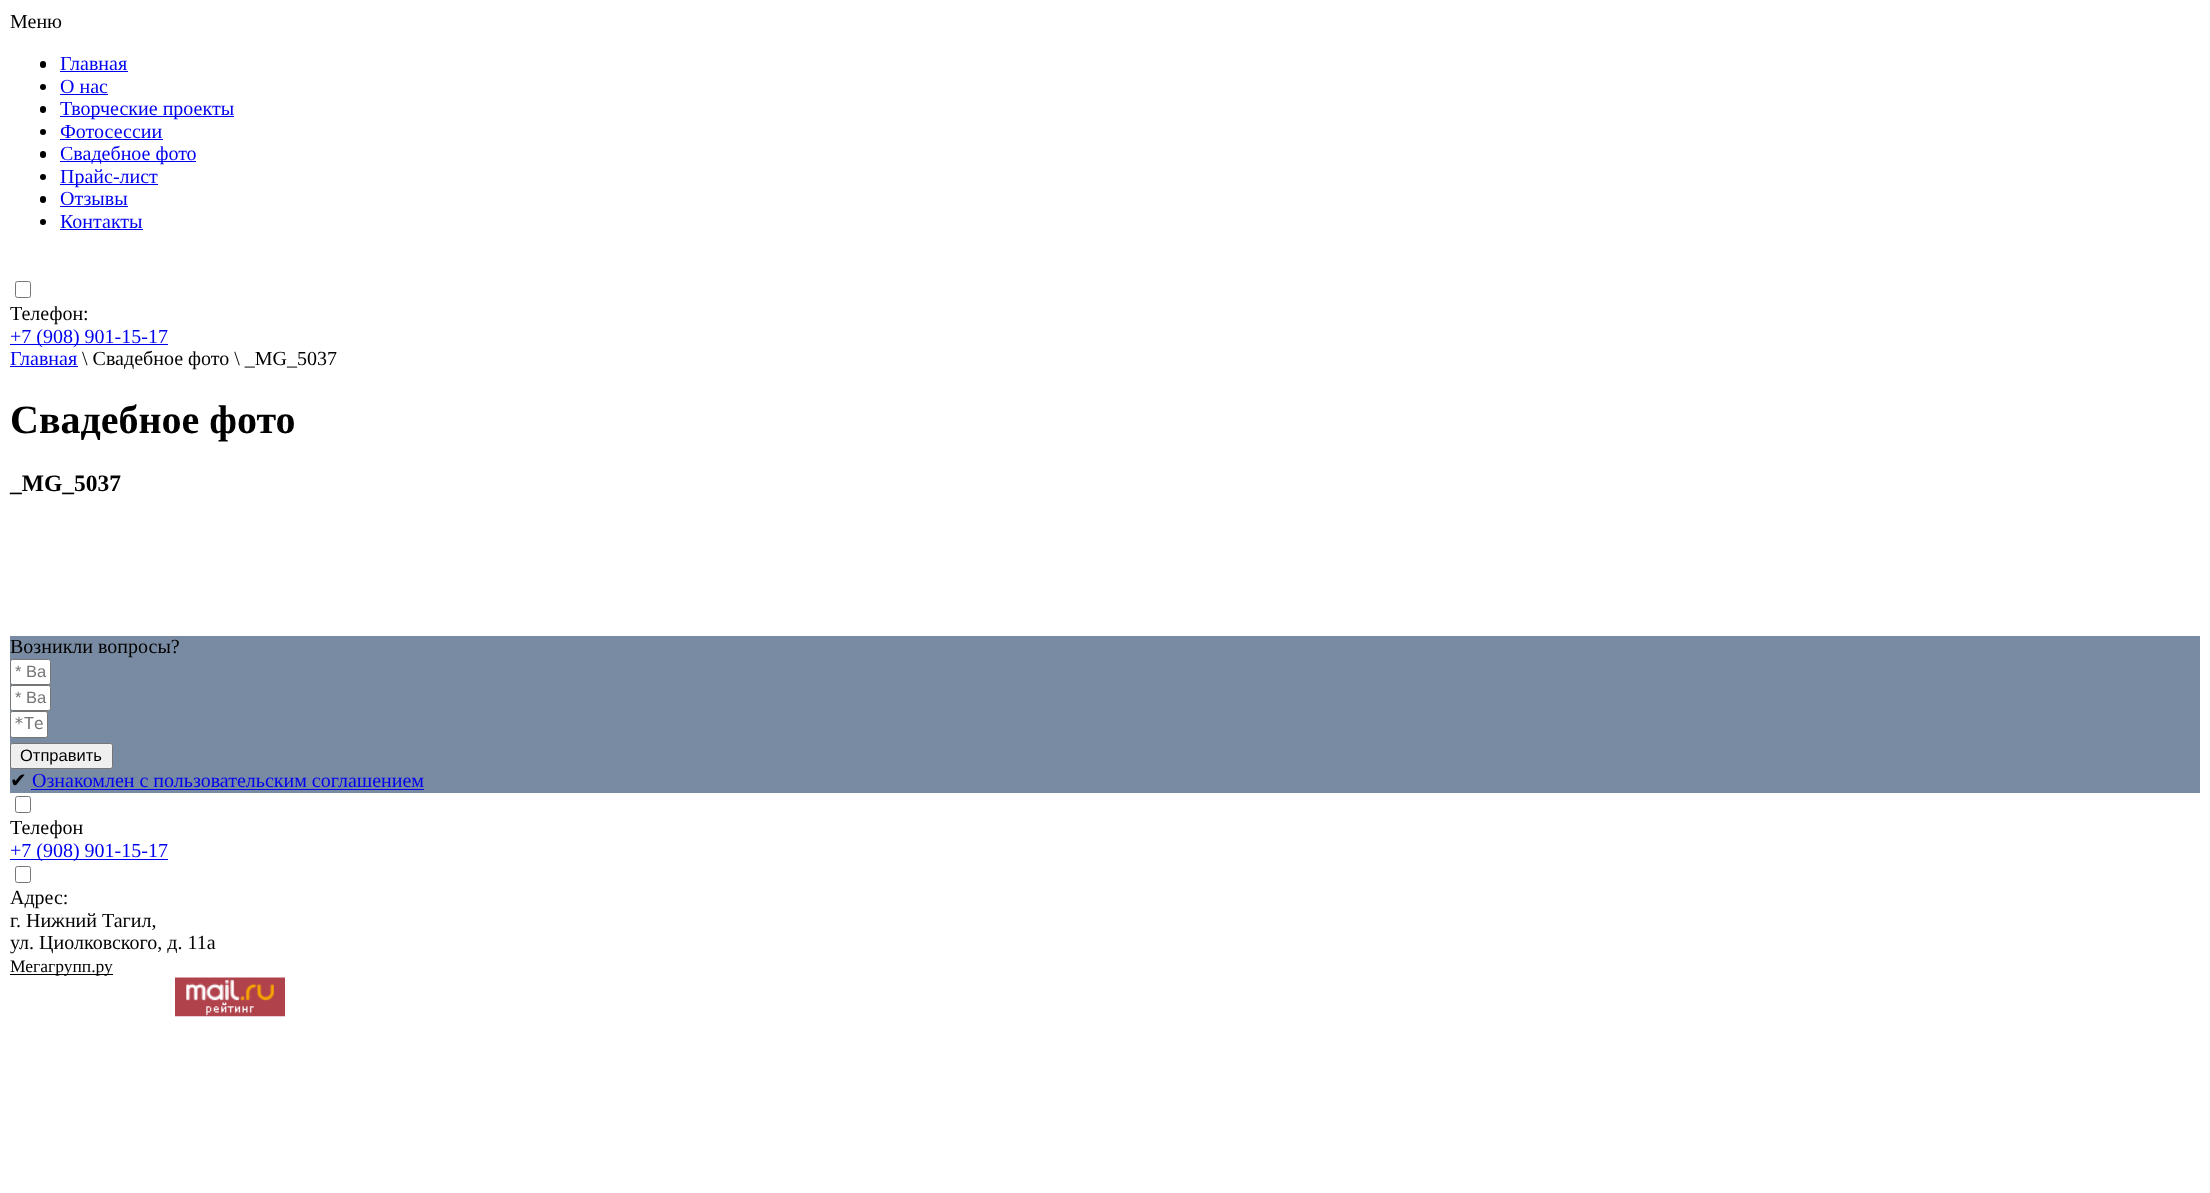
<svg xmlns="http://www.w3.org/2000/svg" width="2210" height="1193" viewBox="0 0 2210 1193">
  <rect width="100%" height="100%" fill="rgb(255,255,255)"/>
  <text x="10" y="28" font-family="Liberation Serif" font-size="20" fill="rgb(0,0,0)">Меню</text>
  <rect x="40" y="61" width="6" height="7" rx="3" fill="rgb(0,0,0)"/>
  <text x="60" y="70" font-family="Liberation Serif" font-size="20" fill="rgb(0,0,238)">Главная</text>
  <rect x="60" y="71" width="68" height="1" fill="rgb(0,0,238)"/>
  <circle cx="43" cy="87" r="3" fill="rgb(0,0,0)"/>
  <text x="60" y="93" font-family="Liberation Serif" font-size="20" fill="rgb(0,0,238)">О нас</text>
  <rect x="60" y="94" width="48" height="1" fill="rgb(0,0,238)"/>
  <rect x="40" y="106" width="6" height="7" rx="3" fill="rgb(0,0,0)"/>
  <rect x="60" y="116" width="174" height="1" fill="rgb(0,0,238)"/>
  <text x="60" y="115" font-family="Liberation Serif" font-size="20" fill="rgb(0,0,238)">Творческие проекты</text>
  <circle cx="43" cy="132" r="3" fill="rgb(0,0,0)"/>
  <text x="60" y="138" font-family="Liberation Serif" font-size="20" fill="rgb(0,0,238)">Фотосессии</text>
  <rect x="60" y="139" width="103" height="1" fill="rgb(0,0,238)"/>
  <rect x="40" y="151" width="6" height="7" rx="3" fill="rgb(0,0,0)"/>
  <rect x="60" y="161" width="136" height="1" fill="rgb(0,0,238)"/>
  <text x="60" y="160" font-family="Liberation Serif" font-size="20" fill="rgb(0,0,238)">Свадебное фото</text>
  <circle cx="43" cy="177" r="3" fill="rgb(0,0,0)"/>
  <rect x="60" y="184" width="98" height="1" fill="rgb(0,0,238)"/>
  <text x="60" y="183" font-family="Liberation Serif" font-size="20" fill="rgb(0,0,238)">Прайс-лист</text>
  <rect x="40" y="196" width="6" height="7" rx="3" fill="rgb(0,0,0)"/>
  <text x="60" y="205" font-family="Liberation Serif" font-size="20" fill="rgb(0,0,238)">Отзывы</text>
  <rect x="60" y="206" width="68" height="1" fill="rgb(0,0,238)"/>
  <circle cx="43" cy="222" r="3" fill="rgb(0,0,0)"/>
  <text x="60" y="228" font-family="Liberation Serif" font-size="20" fill="rgb(0,0,238)">Контакты</text>
  <rect x="60" y="229" width="83" height="1" fill="rgb(0,0,238)"/>
  <rect x="15.5" y="281.5" width="15" height="16" rx="2" fill="none" stroke="rgb(118,118,118)"/>
  <text x="10" y="320" font-family="Liberation Serif" font-size="20" fill="rgb(0,0,0)">Телефон:</text>
  <rect x="10" y="344" width="158" height="1" fill="rgb(0,0,238)"/>
  <g font-family="Liberation Serif" font-size="20" fill="rgb(0,0,238)">
    <text>
      <tspan x="10" y="343">+7 (908) 901-15-17</tspan>
      <tspan x="10" y="365">Главная</tspan>
    </text>
  </g>
  <rect x="10" y="366" width="68" height="1" fill="rgb(0,0,238)"/>
  <text x="82" y="365" font-family="Liberation Serif" font-size="20" fill="rgb(0,0,0)">\ Свадебное фото \ _MG_5037</text>
  <text x="10" y="433" font-family="Liberation Serif" font-size="40" font-weight="bold" fill="rgb(0,0,0)">Свадебное фото</text>
  <text x="10" y="491" font-family="Liberation Serif" font-size="23.5" font-weight="bold" fill="rgb(0,0,0)">_MG_5037</text>
  <rect x="10" y="636" width="2190" height="157" fill="rgb(120,139,162)"/>
  <text x="10" y="653" font-family="Liberation Serif" font-size="20" fill="rgb(0,0,0)">Возникли вопросы?</text>
  <rect x="10.5" y="659.5" width="40" height="25" rx="2" fill="rgb(255,255,255)" stroke="rgb(118,118,118)"/>
  <text x="15" y="677" font-family="Liberation Sans" font-size="16.5" fill="rgb(117,117,117)">* Ва</text>
  <rect x="10.5" y="685.5" width="40" height="25" rx="2" fill="rgb(255,255,255)" stroke="rgb(118,118,118)"/>
  <text x="15" y="703" font-family="Liberation Sans" font-size="16.5" fill="rgb(117,117,117)">* Ва</text>
  <rect x="10.5" y="711.5" width="37" height="26" rx="2" fill="rgb(255,255,255)" stroke="rgb(118,118,118)"/>
  <text x="14" y="729" font-family="DejaVu Sans Mono" font-size="16.5" fill="rgb(117,117,117)">*Те</text>
  <rect x="10.5" y="743.5" width="102" height="25" rx="2" fill="rgb(239,239,239)" stroke="rgb(118,118,118)"/>
  <text x="20" y="761" font-family="Liberation Sans" font-size="16.5" fill="rgb(0,0,0)">Отправить</text>
  <text x="10" y="787" font-family="DejaVu Sans" font-size="20" fill="rgb(0,0,0)">✔</text>
  <text x="32" y="787" font-family="Liberation Serif" font-size="20" fill="rgb(0,0,238)">Ознакомлен с пользовательским соглашением</text>
  <rect x="31" y="789" width="393" height="1" fill="rgb(0,0,238)"/>
  <rect x="15.5" y="796.5" width="15" height="16" rx="2" fill="none" stroke="rgb(118,118,118)"/>
  <text x="10" y="834" font-family="Liberation Serif" font-size="20" fill="rgb(0,0,0)">Телефон</text>
  <rect x="10" y="859" width="158" height="1" fill="rgb(0,0,238)"/>
  <text x="10" y="857" font-family="Liberation Serif" font-size="20" fill="rgb(0,0,238)">+7 (908) 901-15-17</text>
  <rect x="15.5" y="866.5" width="15" height="16" rx="2" fill="none" stroke="rgb(118,118,118)"/>
  <g font-family="Liberation Serif" font-size="20" fill="rgb(0,0,0)">
    <text>
      <tspan x="10" y="904">Адрес:</tspan>
      <tspan x="10" y="927">г. Нижний Тагил,</tspan>
      <tspan x="10" y="949">ул. Циолковского, д. 11а</tspan>
    </text>
  </g>
  <rect x="10" y="974" width="103" height="1" fill="rgb(0,0,0)"/>
  <text x="10" y="972" font-family="Liberation Serif" font-size="17.5" fill="rgb(0,0,0)">Мегагрупп.ру</text>
  <image x="175" y="977" width="110" height="40" href="pic1.png"/>
</svg>
